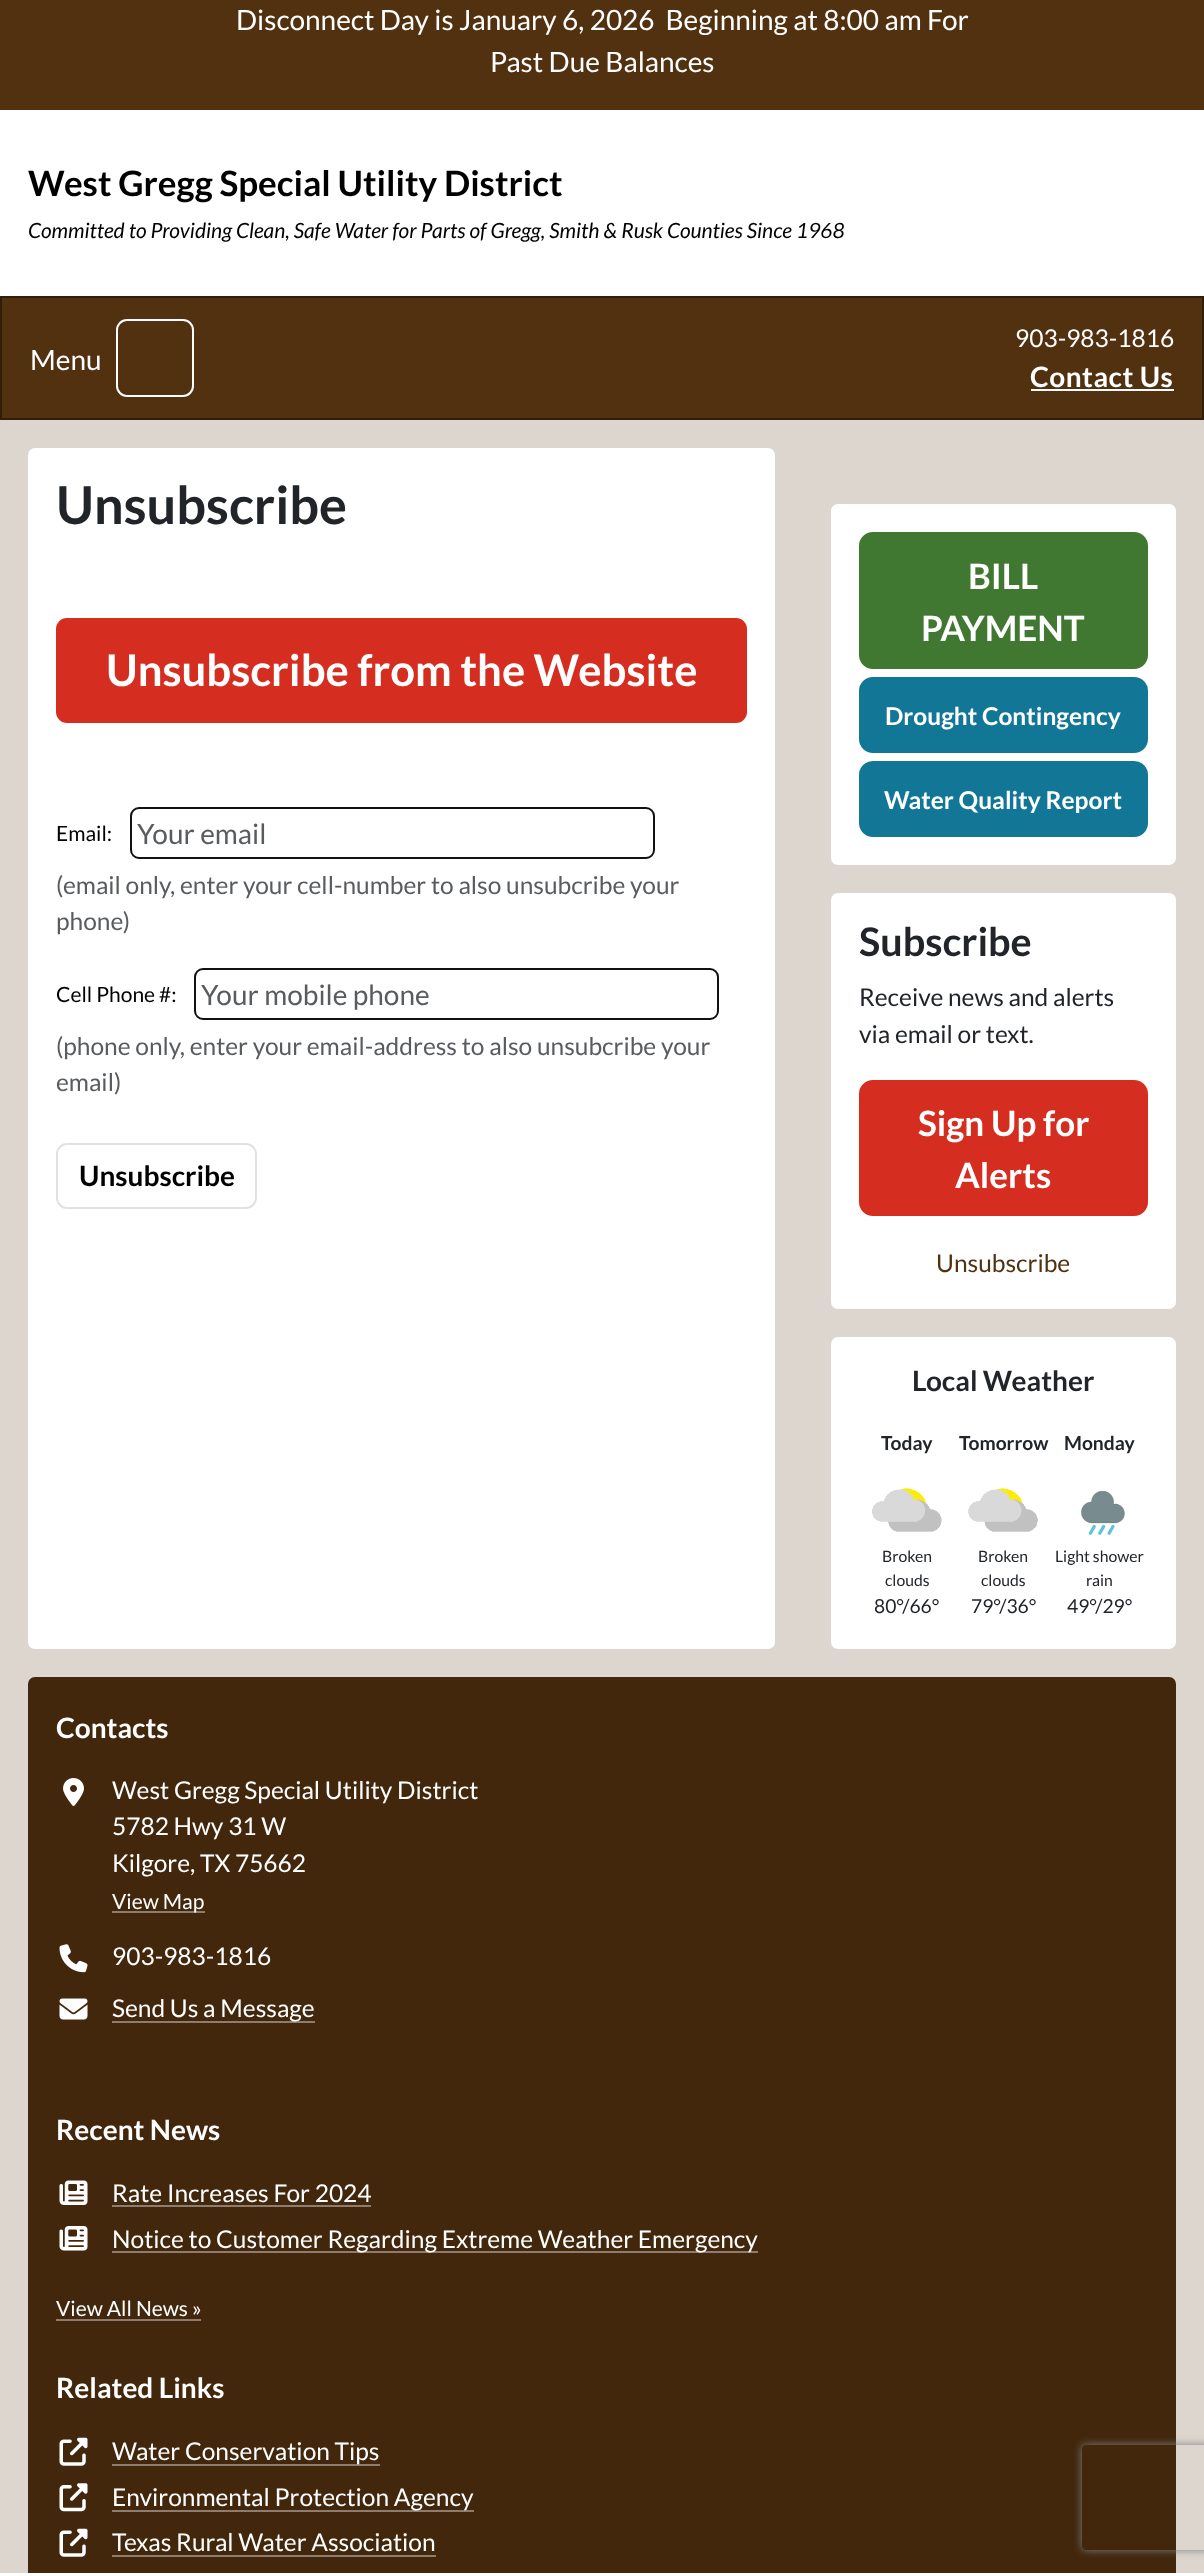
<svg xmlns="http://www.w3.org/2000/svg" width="1204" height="2573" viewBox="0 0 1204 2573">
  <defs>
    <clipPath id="clip1"><path d="M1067 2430H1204V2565H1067ZM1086 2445H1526C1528 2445 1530 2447 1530 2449V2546C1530 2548 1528 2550 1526 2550H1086C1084 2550 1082 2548 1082 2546V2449C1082 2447 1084 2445 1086 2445Z" clip-rule="evenodd"/></clipPath>
  </defs>
  <rect width="100%" height="100%" fill="rgb(220,214,207)"/>
  <rect x="0" y="0" width="1204" height="110" fill="rgb(82,49,16)"/>
  <g font-family="Lato" font-size="28" fill="rgb(255,255,255)">
    <text x="236" y="30" xml:space="preserve">Disconnect Day is January 6, 2026  Beginning at 8:00 am For</text>
    <text x="490" y="72">Past Due Balances</text>
  </g>
  <rect x="0" y="110" width="1204" height="186" fill="rgb(255,255,255)"/>
  <text x="28" y="196" font-family="Lato" font-size="35" font-weight="bold" fill="rgb(0,0,0)">West Gregg Special Utility District</text>
  <text x="28" y="238" font-family="Lato" font-size="21" font-style="italic" fill="rgb(0,0,0)">Committed to Providing Clean, Safe Water for Parts of Gregg, Smith &amp; Rusk Counties Since 1968</text>
  <rect x="1" y="297" width="1202" height="122" fill="rgb(82,49,16)" stroke="rgb(49,29,10)" stroke-width="2"/>
  <text x="30" y="370" font-family="Lato" font-size="28" fill="rgb(255,255,255)">Menu</text>
  <rect x="117" y="320" width="76" height="76" rx="10" fill="none" stroke="rgb(255,255,255)" stroke-width="2"/>
  <text x="1015" y="347" font-family="Lato" font-size="24.5" fill="rgb(255,255,255)">903-983-1816</text>
  <text x="1030" y="387" font-family="Lato" font-size="28" font-weight="bold" letter-spacing="0.5" fill="rgb(255,255,255)">Contact Us</text>
  <rect x="1031" y="389" width="143" height="2" fill="rgb(255,255,255)"/>
  <rect x="28" y="448" width="747" height="1201" rx="7" fill="rgb(255,255,255)"/>
  <text x="56" y="524" font-family="Lato" font-size="52.25" font-weight="bold" fill="rgb(33,37,41)">Unsubscribe</text>
  <rect x="56" y="618" width="691" height="105" rx="11" fill="rgb(213,46,32)"/>
  <text x="106" y="686" font-family="Lato" font-size="43.6" font-weight="bold" fill="rgb(255,255,255)">Unsubscribe from the Website</text>
  <text x="56" y="841" font-family="Lato" font-size="21" fill="rgb(0,0,0)">Email:</text>
  <rect x="131" y="808" width="523" height="50" rx="8" fill="none" stroke="rgb(17,17,17)" stroke-width="2"/>
  <text x="137" y="844" font-family="Lato" font-size="28" fill="rgb(89,92,95)">Your email</text>
  <g font-family="Lato" font-size="24.5" fill="rgb(89,92,95)">
    <text>
      <tspan x="56" y="894">(email only, enter your cell-number to also unsubcribe your</tspan>
      <tspan x="56" y="930">phone)</tspan>
    </text>
  </g>
  <text x="56" y="1002" font-family="Lato" font-size="21" fill="rgb(0,0,0)">Cell Phone #:</text>
  <rect x="195" y="969" width="523" height="50" rx="8" fill="none" stroke="rgb(17,17,17)" stroke-width="2"/>
  <text x="201" y="1005" font-family="Lato" font-size="28" fill="rgb(89,92,95)">Your mobile phone</text>
  <g font-family="Lato" font-size="24.5" fill="rgb(89,92,95)">
    <text>
      <tspan x="56" y="1055">(phone only, enter your email-address to also unsubcribe your</tspan>
      <tspan x="56" y="1091">email)</tspan>
    </text>
  </g>
  <rect x="57" y="1144" width="199" height="64" rx="10" fill="none" stroke="rgb(222,226,230)" stroke-width="2"/>
  <text x="79" y="1186" font-family="Lato" font-size="28" font-weight="bold" fill="rgb(0,0,0)">Unsubscribe</text>
  <rect x="831" y="504" width="345" height="361" rx="7" fill="rgb(255,255,255)"/>
  <rect x="860" y="533" width="287" height="135" rx="13" fill="rgb(65,120,49)" stroke="rgb(65,120,49)" stroke-width="2"/>
  <g font-family="Lato" font-size="35" font-weight="bold" fill="rgb(255,255,255)">
    <text x="968" y="589">BILL</text>
    <text x="921" y="641">PAYMENT</text>
  </g>
  <rect x="860" y="678" width="287" height="74" rx="13" fill="rgb(18,118,150)" stroke="rgb(18,118,150)" stroke-width="2"/>
  <text x="885" y="725" font-family="Lato" font-size="24.5" font-weight="bold" fill="rgb(255,255,255)">Drought Contingency</text>
  <rect x="860" y="762" width="287" height="74" rx="13" fill="rgb(18,118,150)" stroke="rgb(18,118,150)" stroke-width="2"/>
  <text x="884" y="809" font-family="Lato" font-size="24.5" font-weight="bold" fill="rgb(255,255,255)">Water Quality Report</text>
  <rect x="831" y="893" width="345" height="416" rx="7" fill="rgb(255,255,255)"/>
  <text x="859" y="956" font-family="Lato" font-size="39.5" font-weight="bold" fill="rgb(33,37,41)">Subscribe</text>
  <g font-family="Lato" font-size="24.5" fill="rgb(33,37,41)">
    <text>
      <tspan x="859" y="1006">Receive news and alerts</tspan>
      <tspan x="859" y="1043">via email or text.</tspan>
    </text>
  </g>
  <rect x="860" y="1081" width="287" height="134" rx="13" fill="rgb(213,46,32)" stroke="rgb(213,46,32)" stroke-width="2"/>
  <g font-family="Lato" font-size="35" font-weight="bold" fill="rgb(255,255,255)">
    <text x="918" y="1136">Sign Up for</text>
    <text x="955" y="1188">Alerts</text>
  </g>
  <text x="936" y="1272" font-family="Lato" font-size="24.5" fill="rgb(82,49,16)">Unsubscribe</text>
  <rect x="831" y="1337" width="345" height="312" rx="7" fill="rgb(255,255,255)"/>
  <text x="912" y="1391" font-family="Lato" font-size="28" font-weight="bold" fill="rgb(33,37,41)">Local Weather</text>
  <g font-family="Lato" font-size="19.25" font-weight="bold" fill="rgb(33,37,41)">
    <text x="881" y="1450">Today</text>
    <text x="959" y="1450">Tomorrow</text>
    <text x="1064" y="1450">Monday</text>
  </g>
  <image x="872" y="1488" width="70" height="44" href="pic1.png"/>
  <g font-family="Lato" font-size="15.75" fill="rgb(33,37,41)">
    <text x="882" y="1562">Broken</text>
    <text x="885" y="1586">clouds</text>
  </g>
  <text x="874" y="1613" font-family="Lato" font-size="19.25" fill="rgb(33,37,41)">80°/66°</text>
  <image x="968" y="1488" width="70" height="44" href="pic2.png"/>
  <g font-family="Lato" font-size="15.75" fill="rgb(33,37,41)">
    <text x="978" y="1562">Broken</text>
    <text x="981" y="1586">clouds</text>
  </g>
  <text x="971" y="1613" font-family="Lato" font-size="19.25" fill="rgb(33,37,41)">79°/36°</text>
  <image x="1081" y="1490" width="44" height="45" href="pic3.png"/>
  <g font-family="Lato" font-size="15.75" fill="rgb(33,37,41)">
    <text x="1055" y="1562">Light shower</text>
    <text x="1086" y="1586">rain</text>
  </g>
  <text x="1067" y="1613" font-family="Lato" font-size="19.25" fill="rgb(33,37,41)">49°/29°</text>
  <rect x="28" y="1677" width="1148" height="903" rx="7" fill="rgb(66,39,13)"/>
  <text x="56" y="1738" font-family="Lato" font-size="28" font-weight="bold" fill="rgb(255,255,255)">Contacts</text>
  <image x="63" y="1778" width="21" height="28" href="pic4.png"/>
  <g font-family="Lato" font-size="24.5" fill="rgb(255,255,255)">
    <text>
      <tspan x="112" y="1799">West Gregg Special Utility District</tspan>
      <tspan x="112" y="1835">5782 Hwy 31 W</tspan>
      <tspan x="112" y="1872">Kilgore, TX 75662</tspan>
    </text>
  </g>
  <rect x="112" y="1911" width="93" height="2" fill="rgb(142,125,110)"/>
  <text x="112" y="1909" font-family="Lato" font-size="21" fill="rgb(255,255,255)">View Map</text>
  <image x="59" y="1944" width="29" height="29" href="pic5.png"/>
  <text x="112" y="1965" font-family="Lato" font-size="24.5" fill="rgb(255,255,255)">903-983-1816</text>
  <image x="59" y="1998" width="29" height="22" href="pic6.png"/>
  <rect x="112" y="2021" width="203" height="2" fill="rgb(142,125,110)"/>
  <text x="112" y="2017" font-family="Lato" font-size="24.5" fill="rgb(255,255,255)">Send Us a Message</text>
  <text x="56" y="2140" font-family="Lato" font-size="28" font-weight="bold" fill="rgb(255,255,255)">Recent News</text>
  <image x="59" y="2180" width="29" height="25" href="pic7.png"/>
  <text x="112" y="2202" font-family="Lato" font-size="24.5" fill="rgb(255,255,255)">Rate Increases For 2024</text>
  <rect x="112" y="2205" width="259" height="2" fill="rgb(142,125,110)"/>
  <image x="59" y="2226" width="29" height="25" href="pic8.png"/>
  <rect x="112" y="2251" width="646" height="2" fill="rgb(142,125,110)"/>
  <text x="112" y="2248" font-family="Lato" font-size="24.5" fill="rgb(255,255,255)">Notice to Customer Regarding Extreme Weather Emergency</text>
  <text x="56" y="2316" font-family="Lato" font-size="21" fill="rgb(255,255,255)">View All News »</text>
  <rect x="56" y="2319" width="145" height="2" fill="rgb(142,125,110)"/>
  <text x="56" y="2398" font-family="Lato" font-size="28" font-weight="bold" fill="rgb(255,255,255)">Related Links</text>
  <image x="59" y="2437" width="29" height="29" href="pic9.png"/>
  <rect x="112" y="2464" width="268" height="2" fill="rgb(142,125,110)"/>
  <text x="112" y="2460" font-family="Lato" font-size="24.5" fill="rgb(255,255,255)">Water Conservation Tips</text>
  <image x="59" y="2483" width="29" height="29" href="pic10.png"/>
  <rect x="112" y="2510" width="362" height="2" fill="rgb(142,125,110)"/>
  <text x="112" y="2506" font-family="Lato" font-size="24.5" fill="rgb(255,255,255)">Environmental Protection Agency</text>
  <image x="59" y="2528" width="29" height="29" href="pic9.png"/>
  <text x="112" y="2551" font-family="Lato" font-size="24.5" fill="rgb(255,255,255)">Texas Rural Water Association</text>
  <rect x="112" y="2555" width="324" height="2" fill="rgb(142,125,110)"/>
  <g clip-path="url(#clip1)">
    <rect x="1082" y="2445" width="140" height="105" rx="4" fill="rgb(128,128,128)" filter="blur(4.5px)"/>
  </g>
</svg>
